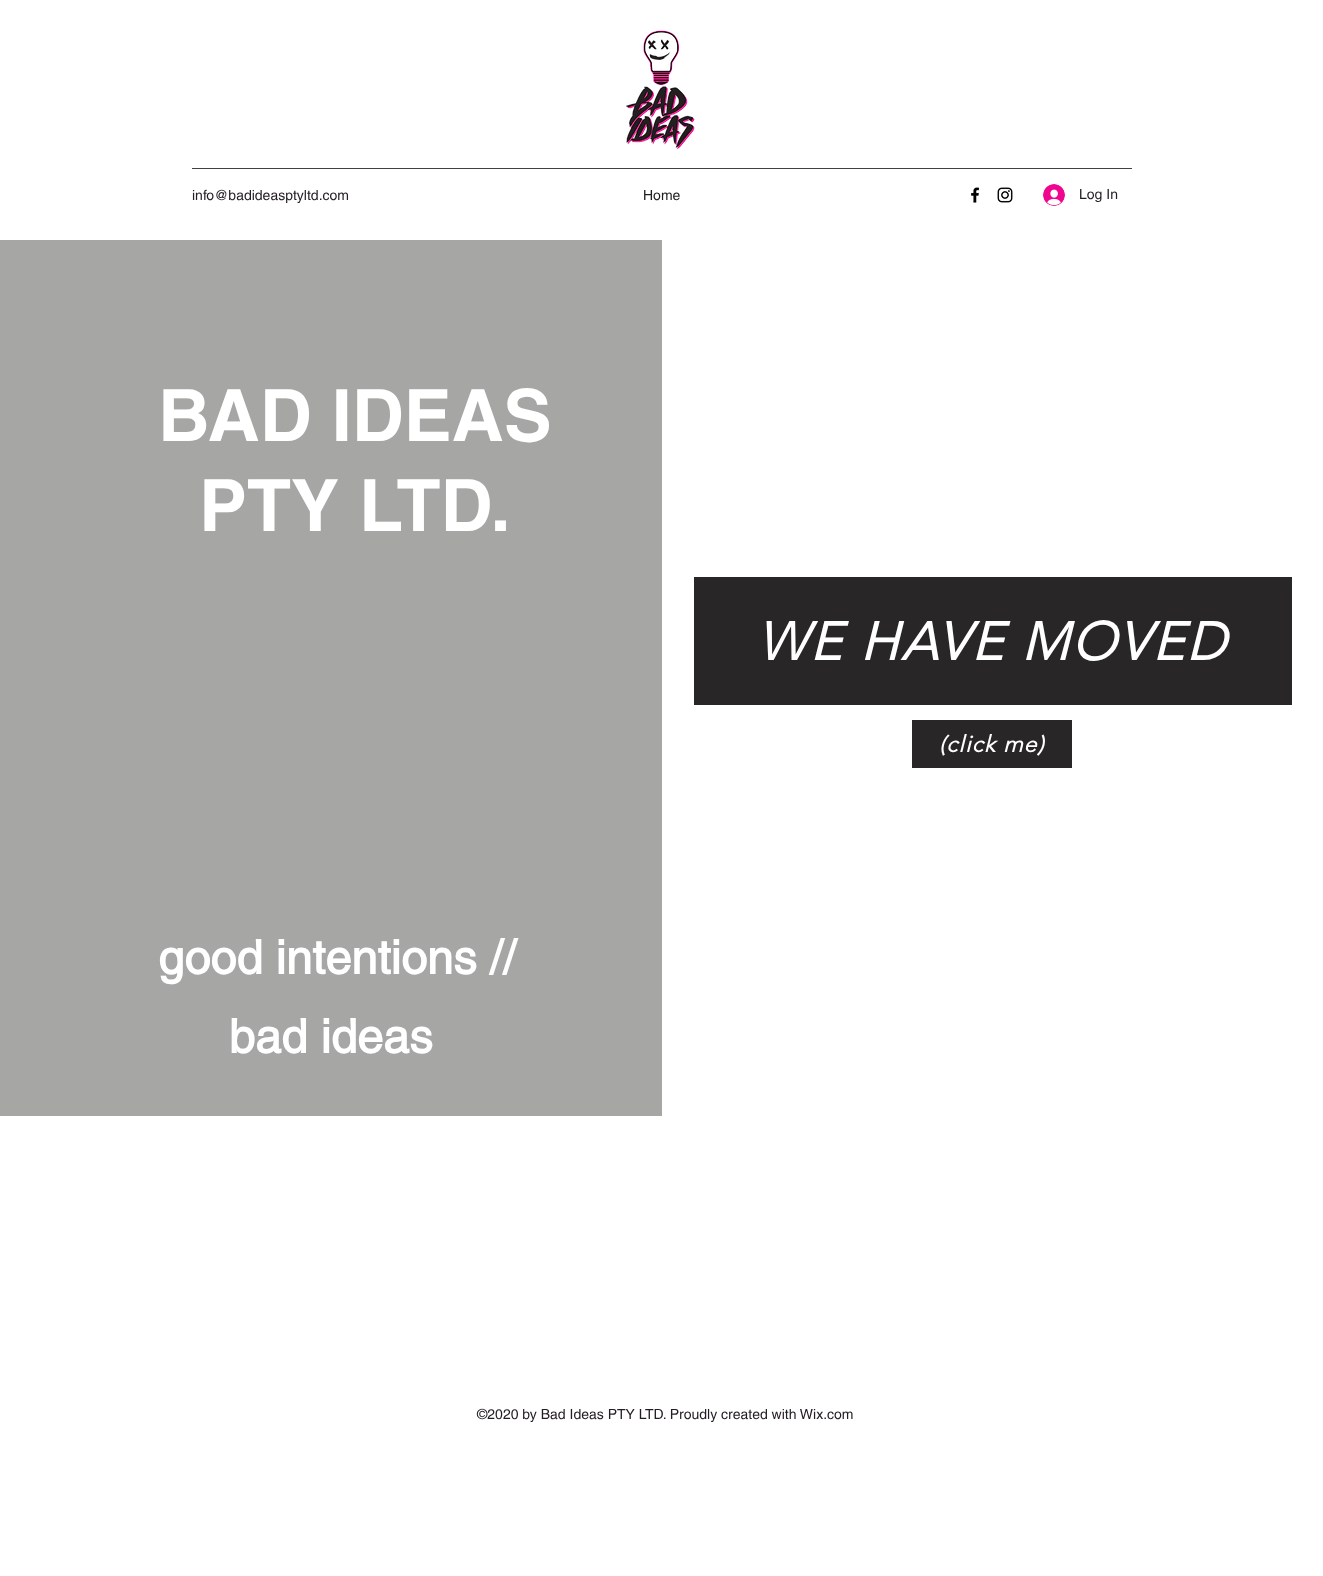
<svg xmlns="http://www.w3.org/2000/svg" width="1323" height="1576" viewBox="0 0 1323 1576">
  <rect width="100%" height="100%" fill="rgb(255,255,255)"/>
  <image x="626" y="30" width="69" height="120" href="pic1.png"/>
  <rect x="192" y="168" width="940" height="1" fill="rgb(69,62,69)"/>
  <text x="192" y="200" font-family="helvetica" font-size="14" fill="rgb(36,28,36)">info@badideasptyltd.com</text>
  <text x="643" y="200" font-family="helvetica" font-size="14" fill="rgb(30,30,28)">Home</text>
  <image x="971" y="187" width="9" height="16" href="pic2.png"/>
  <image x="997" y="187" width="16" height="16" href="pic3.png"/>
  <image x="1043" y="184" width="22" height="22" href="pic4.png"/>
  <text x="1079" y="199" font-family="helvetica" font-size="14" fill="rgb(36,28,36)">Log In</text>
  <rect x="0" y="240" width="662" height="876" fill="rgb(166,166,165)"/>
  <g font-family="helvetica" font-size="72" font-weight="bold" fill="rgb(255,255,255)">
    <text x="158" y="441">BAD IDEAS</text>
    <text x="199" y="531">PTY LTD.</text>
  </g>
  <g font-family="'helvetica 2'" font-size="47" font-weight="bold" fill="rgb(255,255,255)">
    <text x="158" y="974">good intentions //</text>
    <text x="229" y="1053">bad ideas</text>
  </g>
  <rect x="694" y="577" width="598" height="128" fill="rgb(40,38,38)"/>
  <text x="757" y="660" font-family="'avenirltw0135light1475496'" font-size="53" font-weight="bold" font-style="italic" letter-spacing="2.6" fill="rgb(255,255,255)">WE HAVE MOVED</text>
  <rect x="912" y="720" width="160" height="48" fill="rgb(40,38,38)"/>
  <text x="939" y="752" font-family="'avenirltw0135light1475496'" font-size="23" font-weight="bold" font-style="italic" letter-spacing="1.1" fill="rgb(255,255,255)">(click me)</text>
  <text x="477" y="1419" font-family="helvetica" font-size="14" fill="rgb(36,28,36)">©2020 by Bad Ideas PTY LTD. Proudly created with Wix.com</text>
</svg>
